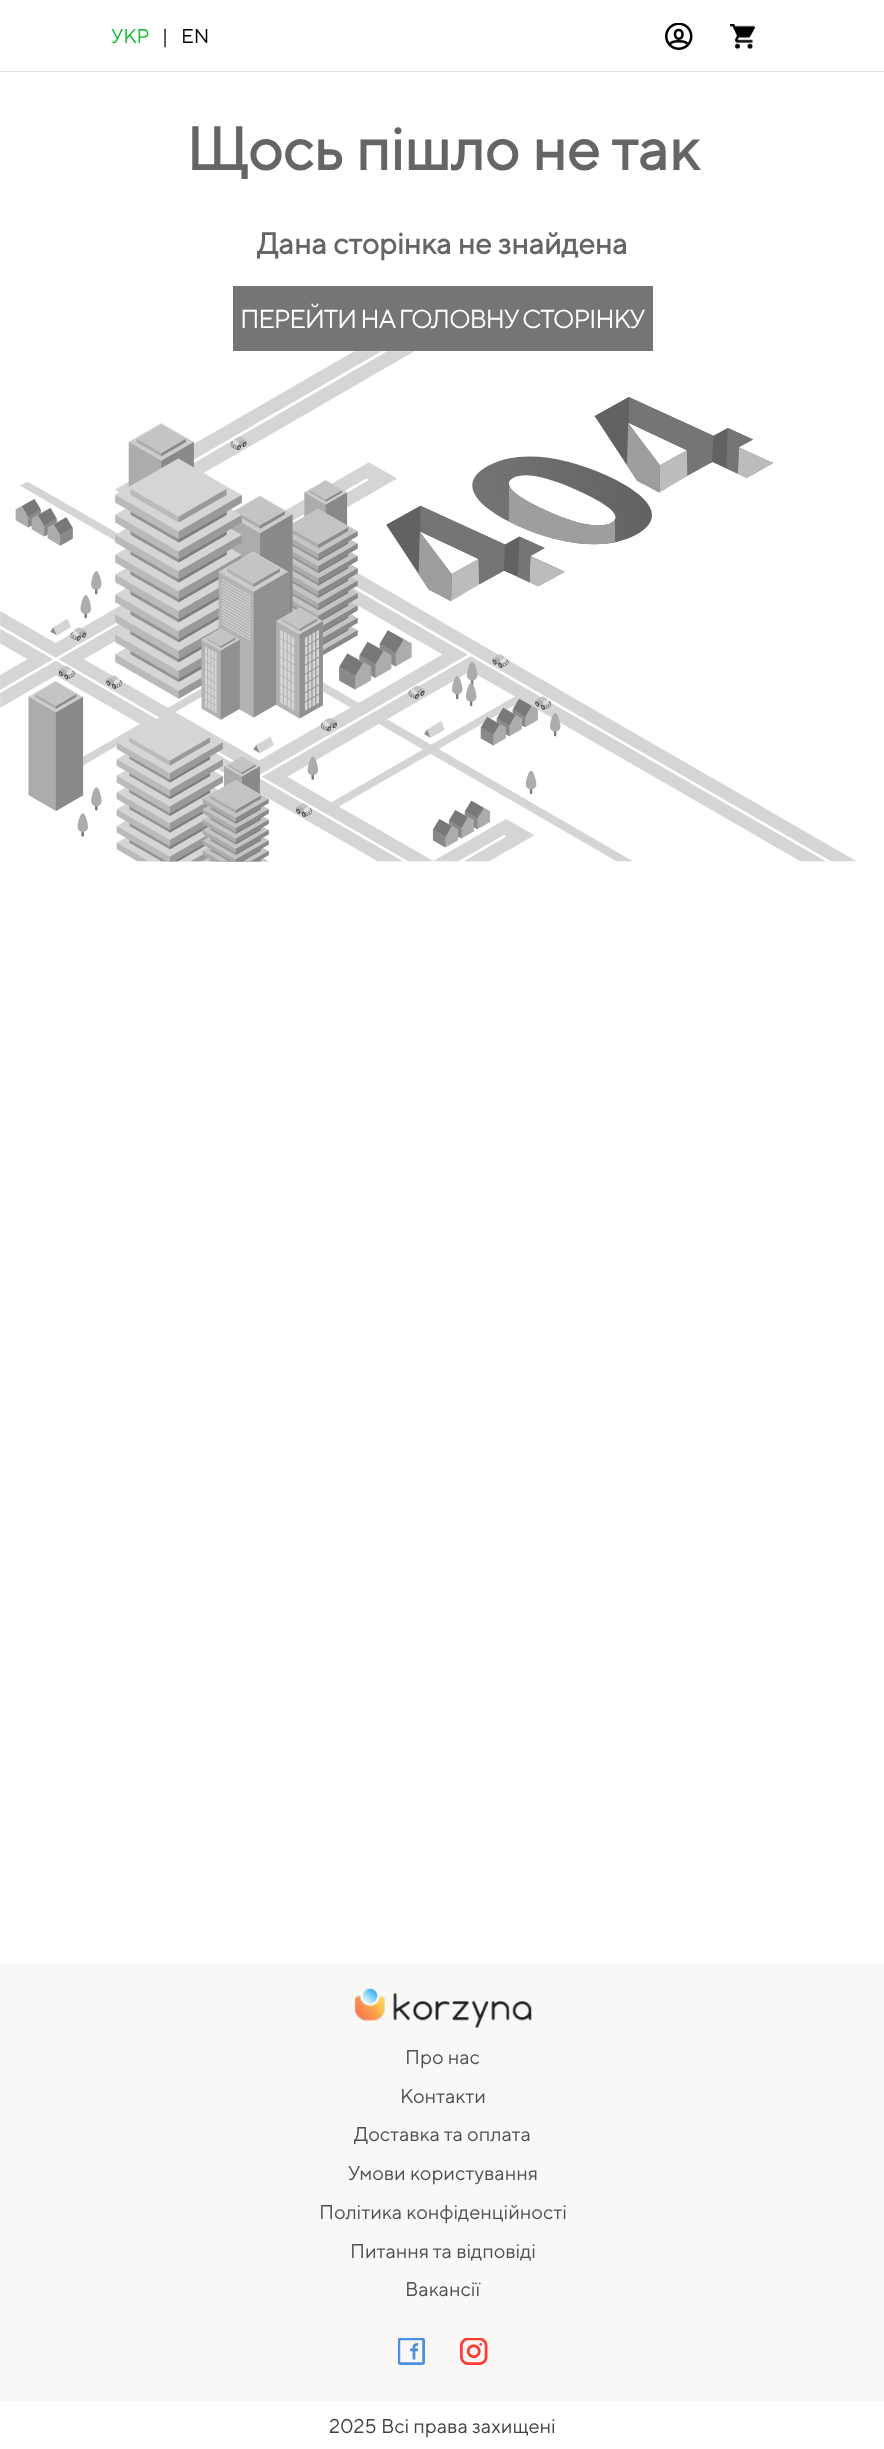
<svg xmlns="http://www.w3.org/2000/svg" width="884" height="2449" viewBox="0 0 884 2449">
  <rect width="100%" height="100%" fill="rgb(255,255,255)"/>
  <text x="111" y="43" font-family="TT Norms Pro" font-size="20" fill="rgb(17,187,46)">УКР</text>
  <g font-family="TT Norms Pro" font-size="20" fill="rgb(0,0,0)">
    <text x="162" y="43">|</text>
    <text x="181" y="43">EN</text>
  </g>
  <image x="665" y="23" width="28" height="27" href="pic1.png"/>
  <image x="730" y="24" width="25" height="25" href="pic2.png"/>
  <rect x="0" y="71" width="884" height="1" fill="rgb(224,224,224)"/>
  <text x="186" y="170" font-family="TT Norms Pro" font-size="60" font-weight="bold" fill="rgb(101,101,100)">Щось пішло не так</text>
  <text x="257" y="254" font-family="TT Norms Pro" font-size="30" font-weight="bold" fill="rgb(101,101,100)">Дана сторінка не знайдена</text>
  <rect x="233" y="286" width="420" height="65" fill="rgb(117,117,117)"/>
  <text x="240" y="328" font-family="TT Norms Pro" font-size="26" letter-spacing="-1.25" fill="rgb(255,255,255)">ПЕРЕЙТИ НА ГОЛОВНУ СТОРІНКУ</text>
  <image x="0" y="351" width="856" height="511" href="pic3.png"/>
  <rect x="0" y="1964" width="884" height="437" fill="rgb(249,248,246)"/>
  <image x="355" y="1988" width="177" height="40" href="pic4.png"/>
  <g font-family="TT Norms Pro" font-size="20" fill="rgb(79,79,79)">
    <text x="405" y="2064">Про нас</text>
    <text x="400" y="2103">Контакти</text>
    <text x="354" y="2141">Доставка та оплата</text>
    <text x="348" y="2180">Умови користування</text>
    <text x="319" y="2219">Політика конфіденційності</text>
    <text x="350" y="2258">Питання та відповіді</text>
    <text x="405" y="2296">Вакансії</text>
  </g>
  <image x="398" y="2338" width="27" height="27" href="pic5.png"/>
  <image x="460" y="2338" width="28" height="27" href="pic6.png"/>
  <text x="329" y="2433" font-family="TT Norms Pro" font-size="20" fill="rgb(66,66,66)">2025 Всі права захищені</text>
</svg>
